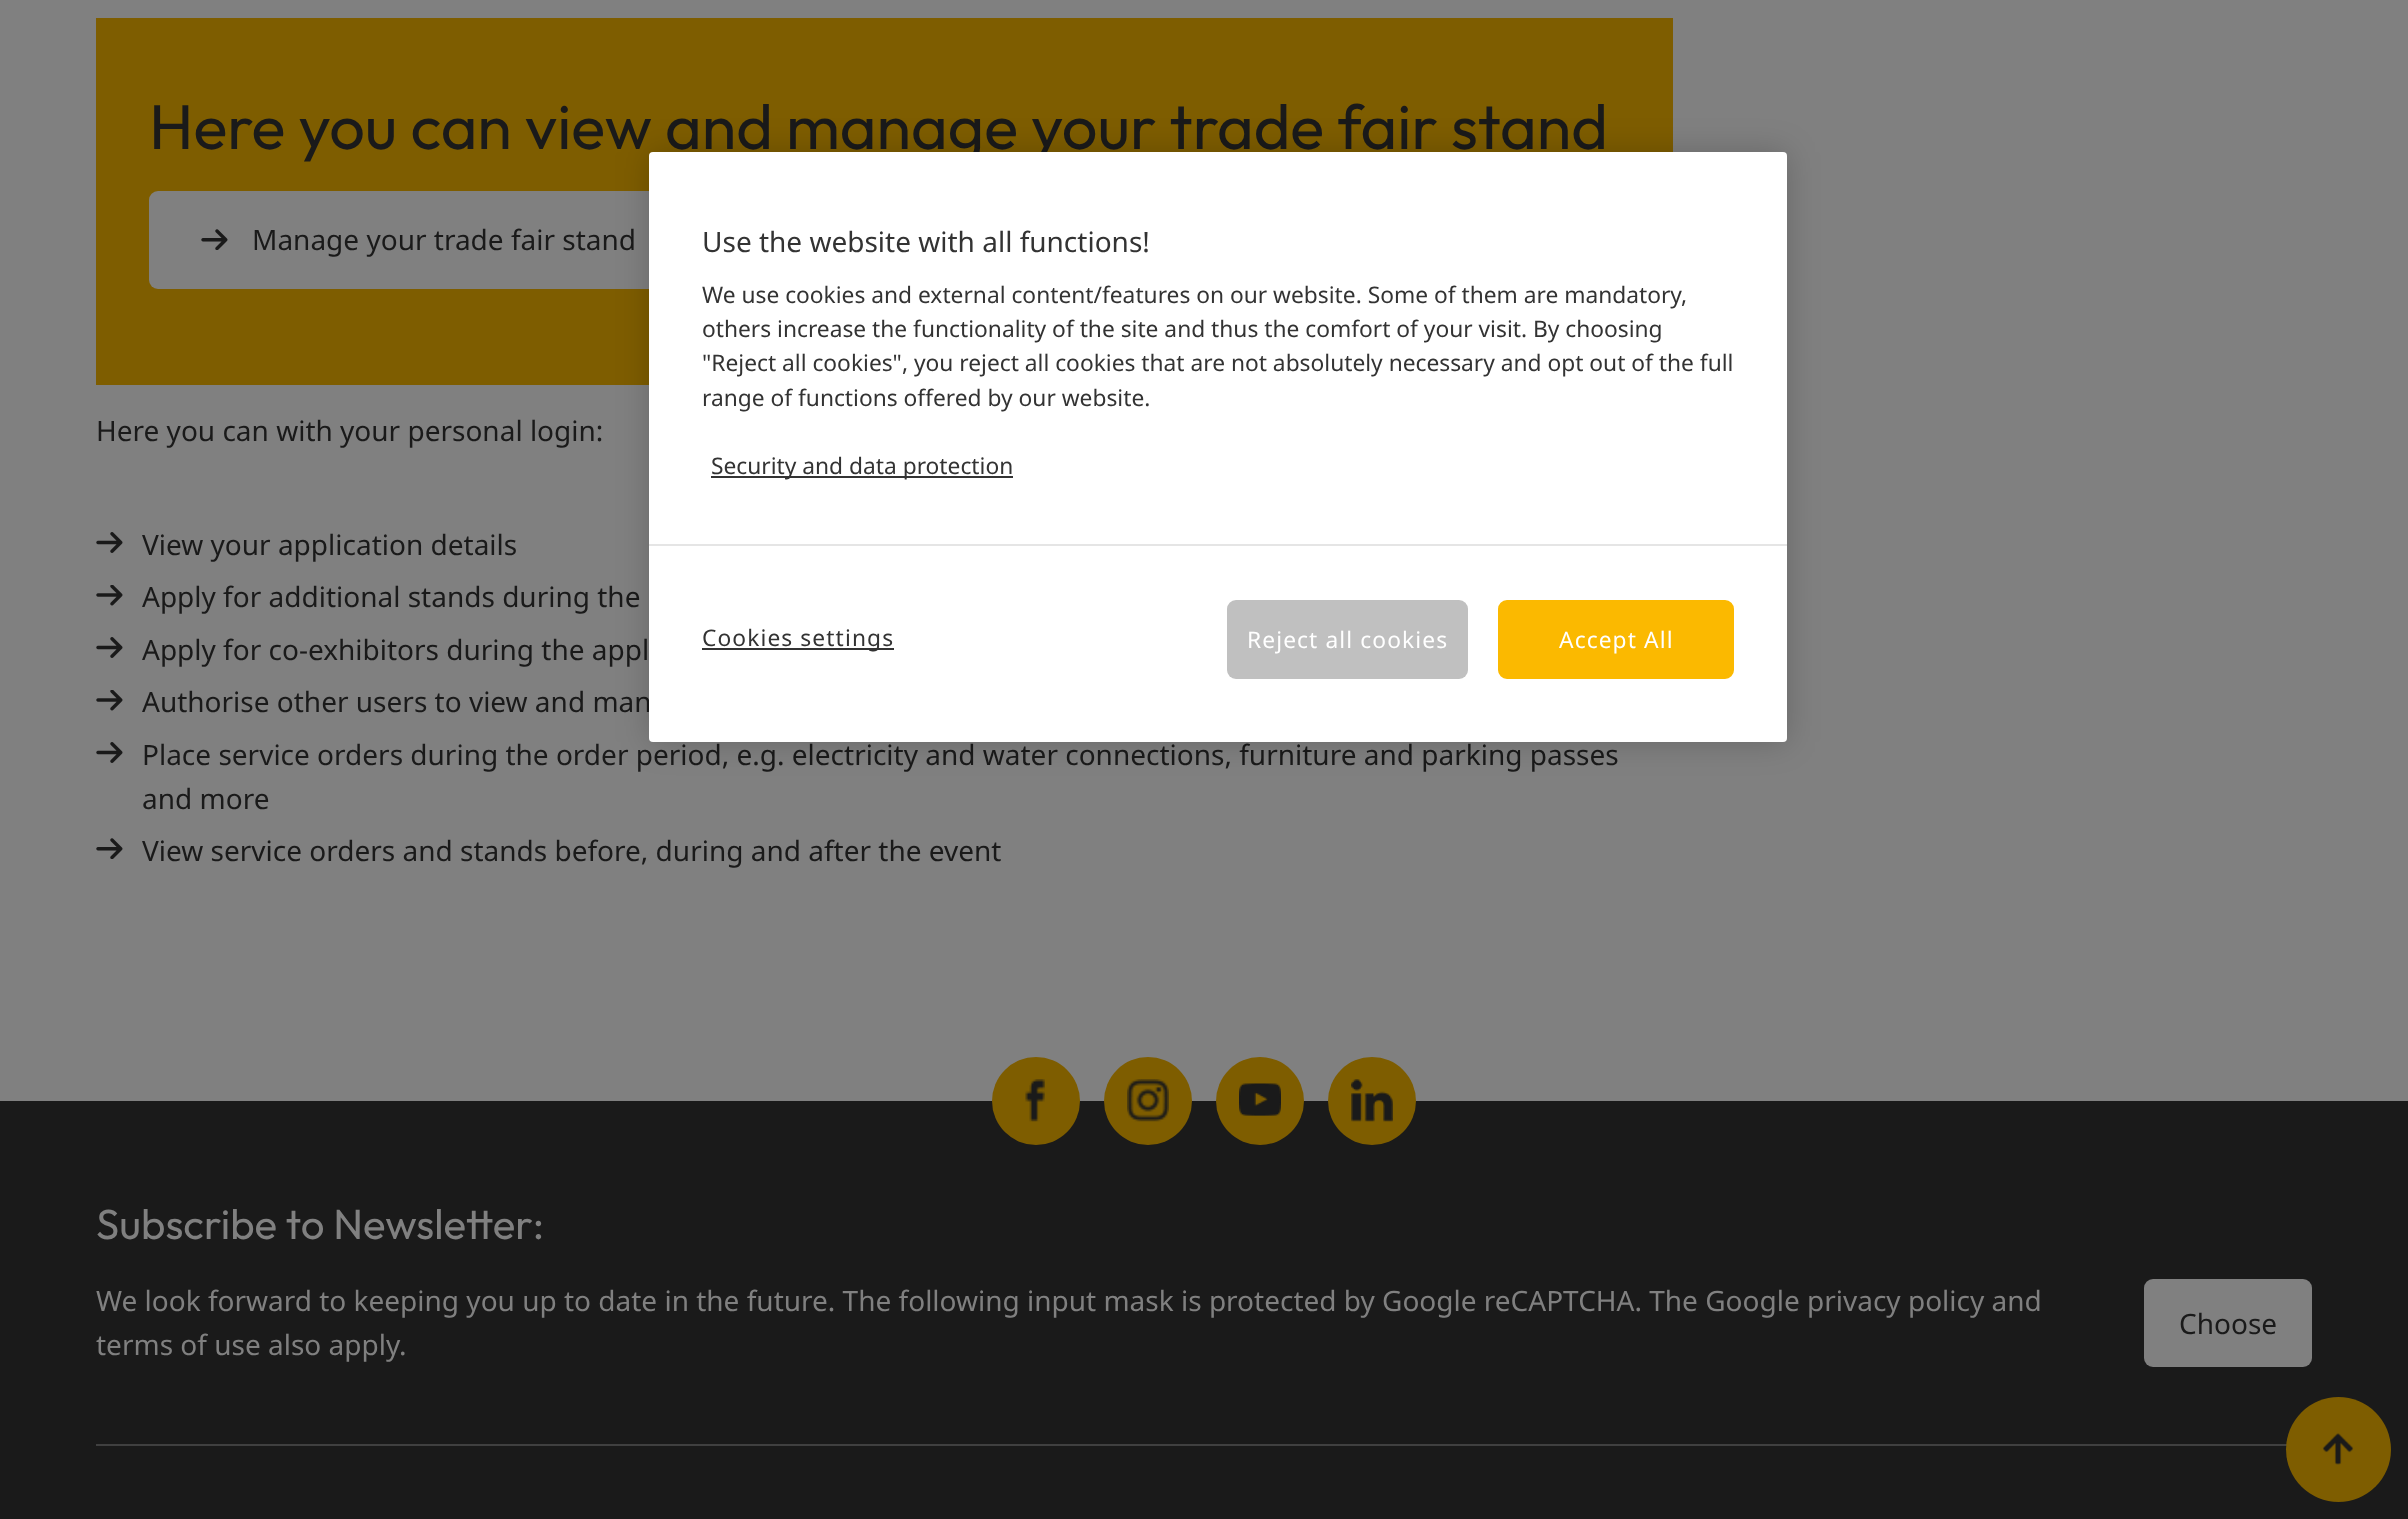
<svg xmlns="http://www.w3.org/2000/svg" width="2408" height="1519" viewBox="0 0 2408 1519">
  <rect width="100%" height="100%" fill="rgb(128,128,128)"/>
  <rect x="96" y="18" width="1577" height="367" fill="rgb(126,93,0)"/>
  <text x="149" y="149" font-family="Outfit" font-size="63" fill="rgb(26,26,26)">Here you can view and manage your trade fair stand</text>
  <rect x="149" y="191" width="541" height="98" rx="9" fill="rgb(128,128,128)"/>
  <image x="201" y="229" width="27" height="21" href="pic1.png"/>
  <g font-family="Noto Sans" font-size="28" fill="rgb(26,26,26)">
    <text x="252" y="250">Manage your trade fair stand</text>
    <text x="96" y="441">Here you can with your personal login:</text>
  </g>
  <image x="96" y="532" width="27" height="21" href="pic2.png"/>
  <text x="142" y="555" font-family="Noto Sans" font-size="28" fill="rgb(26,26,26)">View your application details</text>
  <image x="96" y="585" width="27" height="21" href="pic3.png"/>
  <text x="142" y="607" font-family="Noto Sans" font-size="28" fill="rgb(26,26,26)">Apply for additional stands during the</text>
  <image x="96" y="637" width="27" height="21" href="pic2.png"/>
  <text x="142" y="660" font-family="Noto Sans" font-size="28" fill="rgb(26,26,26)">Apply for co-exhibitors during the appl</text>
  <image x="96" y="690" width="27" height="21" href="pic3.png"/>
  <text x="142" y="712" font-family="Noto Sans" font-size="28" fill="rgb(26,26,26)">Authorise other users to view and man</text>
  <image x="96" y="742" width="27" height="21" href="pic2.png"/>
  <g font-family="Noto Sans" font-size="28" fill="rgb(26,26,26)">
    <text>
      <tspan x="142" y="765">Place service orders during the order period, e.g. electricity and water connections, furniture and parking passes</tspan>
      <tspan x="142" y="809">and more</tspan>
    </text>
  </g>
  <image x="96" y="838" width="27" height="21" href="pic1.png"/>
  <text x="142" y="861" font-family="Noto Sans" font-size="28" fill="rgb(26,26,26)">View service orders and stands before, during and after the event</text>
  <rect x="649" y="152" width="1138" height="590" rx="4" fill="rgba(0,0,0,0.2)" filter="blur(16px)"/>
  <rect x="649" y="152" width="1138" height="590" rx="4" fill="rgb(255,255,255)"/>
  <text x="702" y="252" font-family="Noto Sans" font-size="28" fill="rgb(51,51,51)">Use the website with all functions!</text>
  <g font-family="Noto Sans" font-size="22.75" fill="rgb(51,51,51)">
    <text>
      <tspan x="702" y="303">We use cookies and external content/features on our website. Some of them are mandatory,</tspan>
      <tspan x="702" y="337">others increase the functionality of the site and thus the comfort of your visit. By choosing</tspan>
      <tspan x="702" y="371">"Reject all cookies", you reject all cookies that are not absolutely necessary and opt out of the full</tspan>
      <tspan x="702" y="406">range of functions offered by our website.</tspan>
    </text>
  </g>
  <rect x="711" y="476" width="302" height="2" fill="rgb(51,51,51)"/>
  <text x="711" y="474" font-family="Noto Sans" font-size="22.75" fill="rgb(51,51,51)">Security and data protection</text>
  <rect x="649" y="544" width="1138" height="2" fill="rgb(229,229,229)"/>
  <rect x="702" y="648" width="192" height="2" fill="rgb(51,51,51)"/>
  <text x="702" y="646" font-family="Noto Sans" font-size="22.75" letter-spacing="1.1" fill="rgb(51,51,51)">Cookies settings</text>
  <rect x="1227" y="600" width="241" height="79" rx="9" fill="rgb(192,192,192)"/>
  <text x="1247" y="648" font-family="Noto Sans" font-size="22.75" letter-spacing="1.1" fill="rgb(255,255,255)">Reject all cookies</text>
  <rect x="1499" y="601" width="234" height="77" rx="8" fill="rgb(251,185,0)" stroke="rgb(251,185,0)" stroke-width="2"/>
  <text x="1559" y="648" font-family="Noto Sans" font-size="22.75" letter-spacing="1.1" fill="rgb(255,255,255)">Accept All</text>
  <rect x="0" y="1101" width="2408" height="418" fill="rgb(26,26,26)"/>
  <circle cx="1036" cy="1101" r="44" fill="rgb(126,93,0)"/>
  <image x="1025" y="1079" width="20" height="43" href="pic4.png"/>
  <circle cx="1148" cy="1101" r="44" fill="rgb(126,93,0)"/>
  <image x="1127" y="1079" width="42" height="43" href="pic5.png"/>
  <circle cx="1260" cy="1101" r="44" fill="rgb(126,93,0)"/>
  <image x="1239" y="1083" width="42" height="33" href="pic6.png"/>
  <circle cx="1372" cy="1101" r="44" fill="rgb(126,93,0)"/>
  <image x="1351" y="1079" width="42" height="43" href="pic7.png"/>
  <rect x="96" y="1444" width="2191" height="2" fill="rgb(64,64,64)"/>
  <text x="96" y="1239" font-family="Outfit" font-size="42" fill="rgb(128,128,128)">Subscribe to Newsletter:</text>
  <g font-family="Noto Sans" font-size="28" fill="rgb(128,128,128)">
    <text>
      <tspan x="96" y="1311">We look forward to keeping you up to date in the future. The following input mask is protected by Google reCAPTCHA. The Google privacy policy and</tspan>
      <tspan x="96" y="1355">terms of use also apply.</tspan>
    </text>
  </g>
  <rect x="2144" y="1279" width="168" height="88" rx="9" fill="rgb(128,128,128)"/>
  <text x="2179" y="1334" font-family="Noto Sans" font-size="28" fill="rgb(26,26,26)">Choose</text>
  <circle cx="2338.5" cy="1449.5" r="52.5" fill="rgb(126,93,0)"/>
  <image x="2322" y="1433" width="32" height="32" href="pic8.png"/>
</svg>
